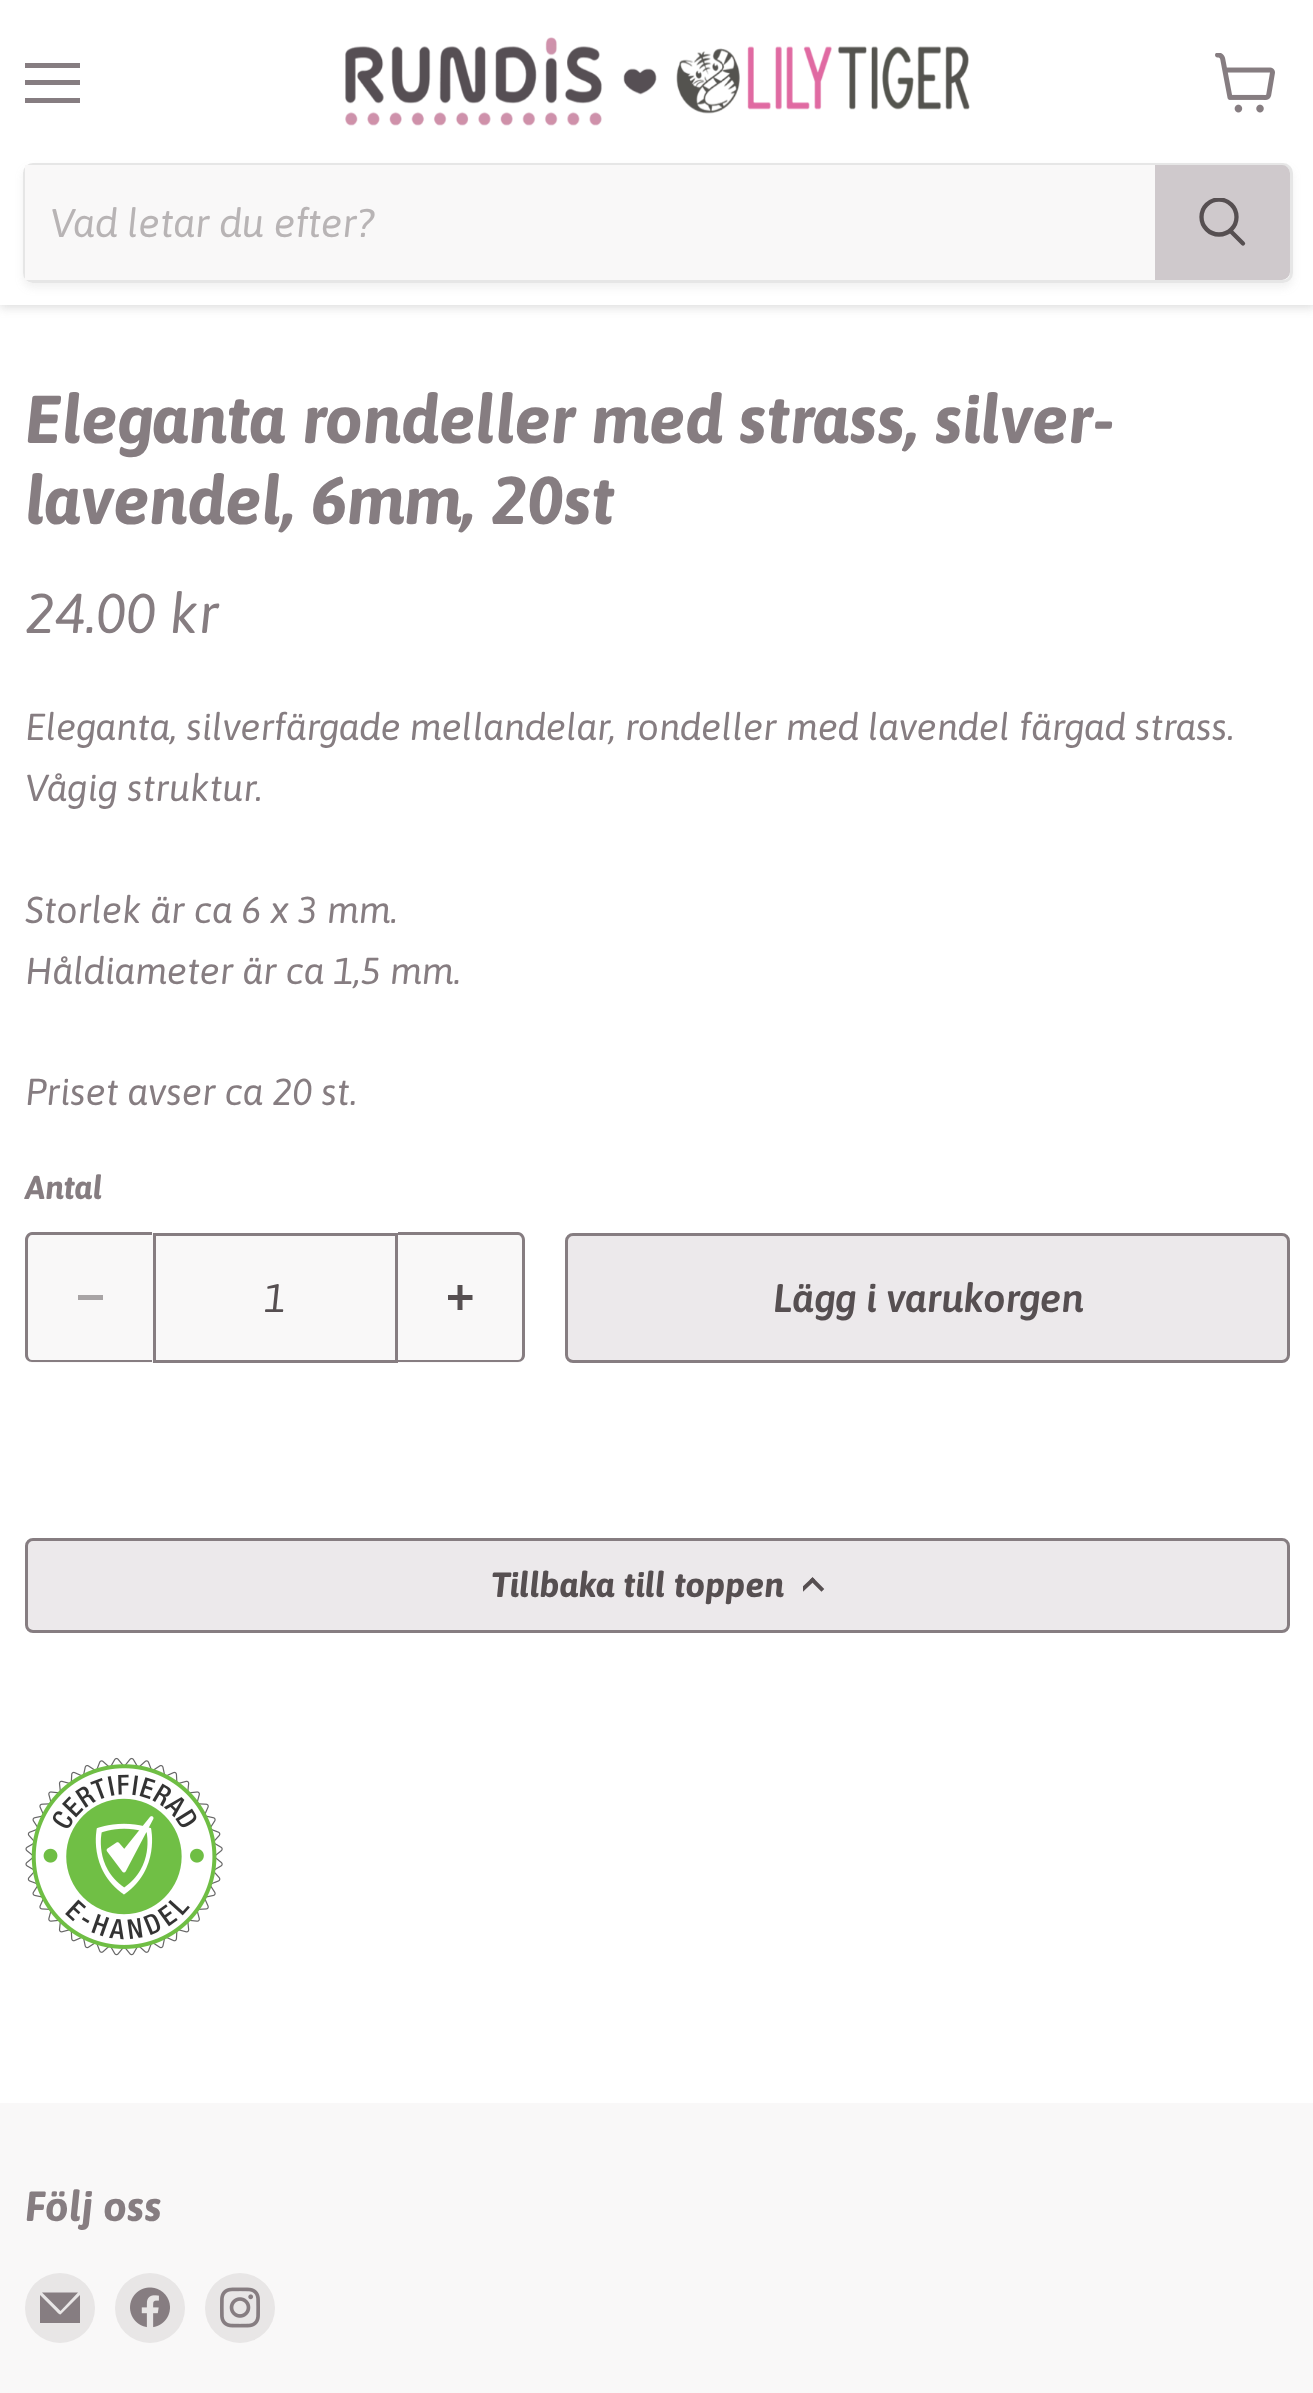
<svg xmlns="http://www.w3.org/2000/svg" width="1313" height="2393" viewBox="0 0 1313 2393">
  <defs>
    <clipPath id="clip1"><path d="M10 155H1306V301H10ZM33 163H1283C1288.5 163 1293 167.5 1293 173V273C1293 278.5 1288.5 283 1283 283H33C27.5 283 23 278.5 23 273V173C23 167.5 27.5 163 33 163Z" clip-rule="evenodd"/></clipPath>
    <clipPath id="clip2"><rect x="1198" y="198" width="50" height="52"/></clipPath>
    <clipPath id="clip3"><rect x="803" y="1575" width="25" height="20"/></clipPath>
  </defs>
  <rect width="100%" height="100%" fill="rgb(255,255,255)"/>
  <rect x="0" y="3" width="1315" height="305" fill="rgba(128,128,128,0.25)" filter="blur(5px)"/>
  <rect x="0" y="0" width="1313" height="305" fill="rgb(255,255,255)"/>
  <rect x="25" y="63" width="55" height="5" fill="rgb(134,125,129)"/>
  <rect x="25" y="80" width="55" height="5" fill="rgb(134,125,129)"/>
  <rect x="25" y="98" width="55" height="5" fill="rgb(134,125,129)"/>
  <image x="1215" y="53" width="60" height="60" href="pic1.png"/>
  <image x="345" y="37" width="625" height="89" href="pic2.png"/>
  <g clip-path="url(#clip1)">
    <rect x="23" y="168" width="1270" height="120" rx="10" fill="rgba(128,128,128,0.11)" filter="blur(4px)"/>
  </g>
  <rect x="24.5" y="164.5" width="1267" height="117" rx="8.5" fill="none" stroke="rgba(128,128,128,0.2)" stroke-width="3"/>
  <rect x="25" y="165" width="1130" height="115" fill="rgb(249,248,248)"/>
  <text x="50" y="237" font-family="Asap" font-size="40" font-style="italic" fill="rgb(184,180,181)">Vad letar du efter?</text>
  <path d="M1156.5 166.5H1282C1285.5 166.5 1288.5 169.5 1288.5 173V272C1288.5 275.5 1285.5 278.5 1282 278.5H1156.5Z" fill="rgb(207,201,204)" stroke="rgb(207,201,204)" stroke-width="3"/>
  <path d="M1243 243.5L1231 231.5" fill="none" stroke="rgb(86,79,81)" stroke-width="4.3" stroke-linecap="round"/>
  <g clip-path="url(#clip2)">
    <circle cx="1219" cy="217" r="17.5" fill="none" stroke="rgb(86,79,81)" stroke-width="4.3"/>
  </g>
  <g font-family="Asap" font-size="67.5" font-weight="bold" font-style="italic" fill="rgb(134,125,129)">
    <text>
      <tspan x="25" y="443">Eleganta rondeller med strass, silver-</tspan>
      <tspan x="25" y="524">lavendel, 6mm, 20st</tspan>
    </text>
  </g>
  <text x="25" y="633" font-family="Asap" font-size="56" font-style="italic" fill="rgb(134,125,129)">24.00 kr</text>
  <g font-family="Asap" font-size="37.5" font-style="italic" fill="rgb(134,125,129)">
    <text>
      <tspan x="25" y="740">Eleganta, silverfärgade mellandelar, rondeller med lavendel färgad strass.</tspan>
      <tspan x="25" y="801">Vågig struktur.</tspan>
    </text>
    <text>
      <tspan x="25" y="923">Storlek är ca 6 x 3 mm.</tspan>
      <tspan x="25" y="984">Håldiameter är ca 1,5 mm.</tspan>
    </text>
    <text x="25" y="1105">Priset avser ca 20 st.</text>
  </g>
  <text x="25" y="1199" font-family="Asap" font-size="33" font-weight="bold" font-style="italic" fill="rgb(134,125,129)">Antal</text>
  <path d="M33 1233H153V1363H33C28.5 1363 25 1359.5 25 1355V1241C25 1236.5 28.5 1233 33 1233Z" fill="rgb(249,248,248)"/>
  <path d="M32 1232H152V1362H32C28 1362 25 1359 25 1355V1240C25 1236 28 1232 32 1232ZM32 1235H152V1360H32C30 1360 28 1358 28 1355V1240C28 1237 30 1235 32 1235Z" fill="rgb(134,125,129)" fill-rule="evenodd"/>
  <rect x="78" y="1295" width="25" height="5" fill="rgb(168,164,165)"/>
  <rect x="154.5" y="1234.5" width="242" height="127" fill="rgb(249,248,248)" stroke="rgb(134,125,129)" stroke-width="3"/>
  <text x="264" y="1312" font-family="Asap" font-size="39.75" font-style="italic" fill="rgb(86,79,81)">1</text>
  <path d="M398 1233H517C521.5 1233 525 1236.5 525 1241V1355C525 1359.5 521.5 1363 517 1363H398Z" fill="rgb(249,248,248)"/>
  <path d="M398 1232H518C522 1232 525 1236 525 1240V1355C525 1359 522 1362 518 1362H398ZM398 1235H518C520 1235 522 1237 522 1240V1355C522 1358 520 1360 518 1360H398Z" fill="rgb(134,125,129)" fill-rule="evenodd"/>
  <image x="448" y="1285" width="25" height="25" href="pic3.png"/>
  <rect x="566.5" y="1234.5" width="722" height="127" rx="6.5" fill="rgb(236,233,235)" stroke="rgb(134,125,129)" stroke-width="3"/>
  <text x="773" y="1312" font-family="Asap" font-size="39.75" font-weight="600" font-style="italic" fill="rgb(86,79,81)">Lägg i varukorgen</text>
  <rect x="26.5" y="1539.5" width="1262" height="92" rx="6.5" fill="rgb(236,233,235)" stroke="rgb(134,125,129)" stroke-width="3"/>
  <text x="491" y="1597" font-family="Asap" font-size="35" font-weight="bold" font-style="italic" fill="rgb(86,79,81)">Tillbaka till toppen</text>
  <g clip-path="url(#clip3)">
    <path d="M812.5 1580L803 1589" fill="none" stroke="rgb(86,79,81)" stroke-width="3.9" stroke-linecap="square"/>
  </g>
  <path d="M812.5 1580L821.5 1589" fill="none" stroke="rgb(86,79,81)" stroke-width="3.9" stroke-linecap="square"/>
  <image x="25" y="1757" width="198" height="199" href="pic4.png"/>
  <rect x="0" y="2103" width="1313" height="290" fill="rgb(249,248,248)"/>
  <text x="25" y="2221" font-family="Asap" font-size="42" font-weight="bold" font-style="italic" fill="rgb(134,125,129)">Följ oss</text>
  <circle cx="60" cy="2308" r="35" fill="rgb(232,230,230)"/>
  <path d="M61 2314C60 2316 56 2311 56 2311L40 2295V2323H80V2295Z" fill="rgb(134,125,129)"/>
  <path d="M78 2292.5H42L60.5 2311Z" fill="rgb(134,125,129)"/>
  <circle cx="150" cy="2308" r="35" fill="rgb(232,230,230)"/>
  <image x="130" y="2287" width="40" height="41" href="pic5.png"/>
  <circle cx="240" cy="2308" r="35" fill="rgb(232,230,230)"/>
  <image x="220" y="2287" width="40" height="41" href="pic6.png"/>
</svg>
